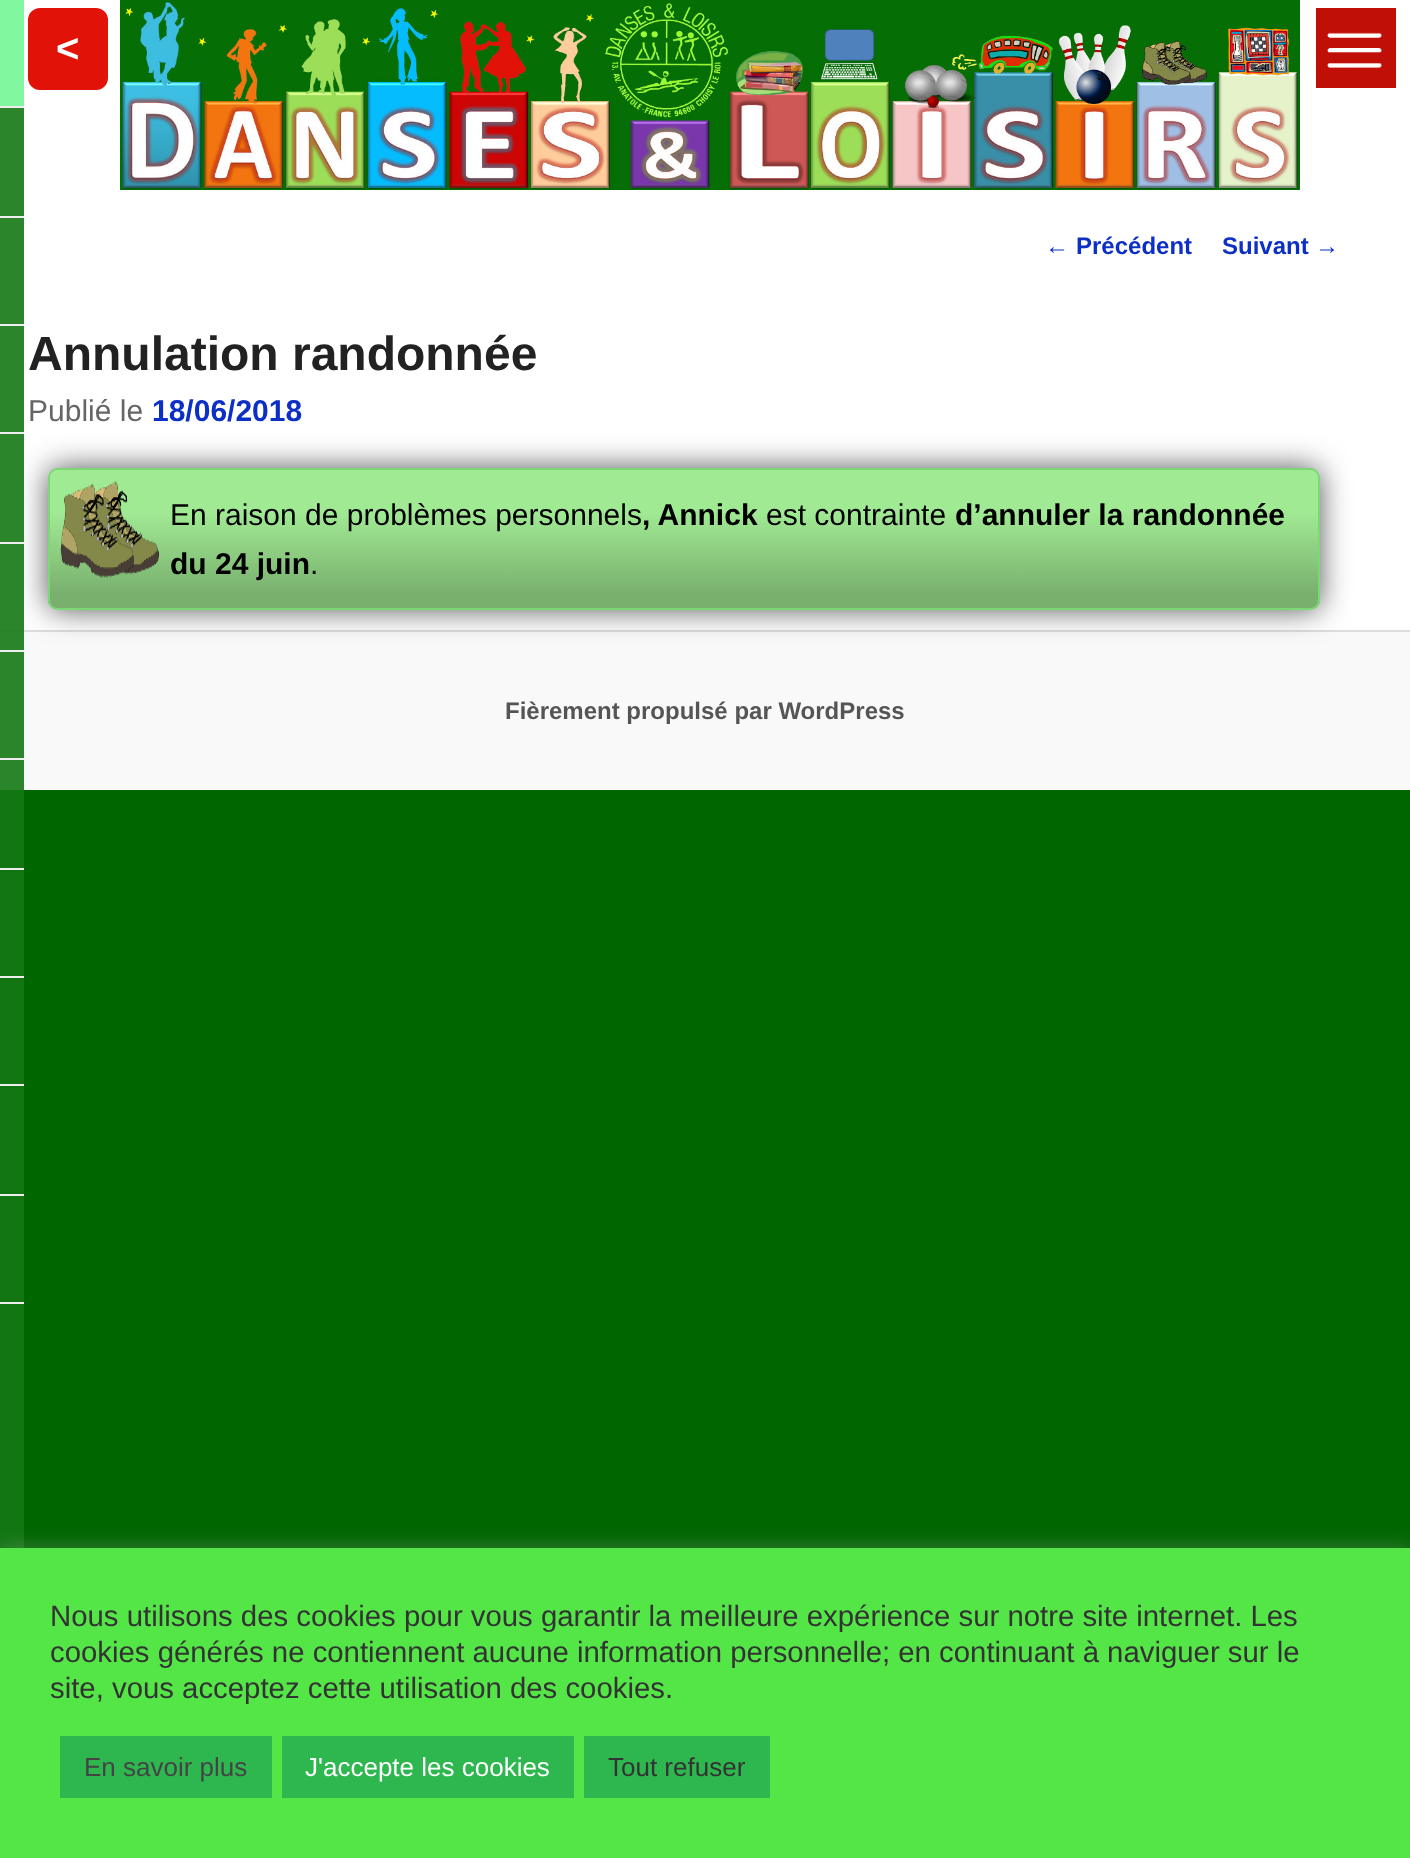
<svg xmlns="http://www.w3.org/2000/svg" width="1410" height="1858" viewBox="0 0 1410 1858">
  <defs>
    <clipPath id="clip1"><rect x="48" y="468" width="1272" height="142" rx="10"/></clipPath>
    <linearGradient id="g1" gradientUnits="userSpaceOnUse" x1="684" y1="470" x2="684" y2="608"><stop offset="0.3" stop-color="rgb(161,234,148)"/><stop offset="0.9" stop-color="rgb(121,176,110)"/></linearGradient>
    <linearGradient id="g2" gradientUnits="userSpaceOnUse" x1="110" y1="470" x2="110" y2="608"><stop offset="0.3" stop-color="rgb(161,234,148)"/><stop offset="0.9" stop-color="rgb(121,176,110)"/></linearGradient>
  </defs>
  <rect width="100%" height="100%" fill="rgb(0,102,0)"/>
  <rect x="0" y="0" width="1410" height="630" fill="rgb(255,255,255)"/>
  <rect x="0" y="632" width="1410" height="158" fill="rgb(249,249,249)"/>
  <rect x="0" y="630" width="1410" height="2" fill="rgb(221,221,221)"/>
  <rect x="48" y="468" width="1272" height="142" rx="10" fill="rgb(85,85,85)" filter="blur(15px)"/>
  <rect x="0" y="108" width="24" height="1440" fill="rgba(20,120,20,0.9)"/>
  <rect x="0" y="106" width="24" height="2" fill="rgb(238,238,238)"/>
  <rect x="0" y="0" width="24" height="106" fill="rgb(129,247,159)"/>
  <rect x="0" y="216" width="24" height="2" fill="rgb(238,238,238)"/>
  <rect x="0" y="324" width="24" height="2" fill="rgb(238,238,238)"/>
  <rect x="0" y="432" width="24" height="2" fill="rgb(238,238,238)"/>
  <rect x="0" y="542" width="24" height="2" fill="rgb(238,238,238)"/>
  <rect x="0" y="650" width="24" height="2" fill="rgb(238,238,238)"/>
  <rect x="0" y="758" width="24" height="2" fill="rgb(238,238,238)"/>
  <rect x="0" y="868" width="24" height="2" fill="rgb(238,238,238)"/>
  <rect x="0" y="976" width="24" height="2" fill="rgb(238,238,238)"/>
  <rect x="0" y="1084" width="24" height="2" fill="rgb(238,238,238)"/>
  <rect x="0" y="1194" width="24" height="2" fill="rgb(238,238,238)"/>
  <rect x="0" y="1302" width="24" height="2" fill="rgb(238,238,238)"/>
  <image x="1316" y="8" width="80" height="80" href="pic1.png"/>
  <rect x="28" y="8" width="80" height="82" rx="12" fill="rgb(225,18,8)"/>
  <text x="56" y="62" font-family="Liberation Sans" font-size="40" font-weight="bold" fill="rgb(255,255,255)">&lt;</text>
  <image x="120" y="0" width="1180" height="190" href="pic2.png"/>
  <text x="1045" y="254" font-family="Liberation Sans" font-size="24" fill="rgb(12,47,197)">←</text>
  <g font-family="Liberation Sans" font-size="24" font-weight="bold" fill="rgb(12,47,197)">
    <text x="1076" y="254">Précédent</text>
    <text x="1222" y="254">Suivant</text>
  </g>
  <text x="1315" y="254" font-family="Liberation Sans" font-size="24" fill="rgb(12,47,197)">→</text>
  <text x="28" y="370" font-family="Liberation Sans" font-size="48" font-weight="bold" fill="rgb(34,34,34)">Annulation randonnée</text>
  <text x="28" y="421" font-family="Liberation Sans" font-size="30" fill="rgb(102,102,102)">Publié le</text>
  <text x="152" y="421" font-family="Liberation Sans" font-size="30" font-weight="bold" fill="rgb(12,47,197)">18/06/2018</text>
  <g clip-path="url(#clip1)">
    <rect x="48" y="470" width="1272" height="138" fill="url(#g1)"/>
  </g>
  <rect x="49" y="469" width="1270" height="140" rx="9" fill="none" stroke="rgb(122,217,117)" stroke-width="2"/>
  <path d="M58 470H170V608H58C53.5 608 50 604.5 50 600V478C50 473.5 53.5 470 58 470Z" fill="url(#g2)"/>
  <image x="60" y="481" width="99" height="97" href="pic3.png"/>
  <text x="170" y="525" font-family="Liberation Sans" font-size="30" fill="rgb(0,0,0)">En raison de problèmes personnels</text>
  <text x="642" y="525" font-family="Liberation Sans" font-size="30" font-weight="bold" fill="rgb(0,0,0)">, Annick</text>
  <text x="766" y="525" font-family="Liberation Sans" font-size="30" fill="rgb(0,0,0)">est contrainte</text>
  <g font-family="Liberation Sans" font-size="30" font-weight="bold" fill="rgb(0,0,0)">
    <text x="955" y="525">d’annuler la randonnée</text>
    <text x="170" y="574">du 24 juin</text>
  </g>
  <text x="310" y="574" font-family="Liberation Sans" font-size="30" fill="rgb(0,0,0)">.</text>
  <text x="505" y="719" font-family="Liberation Sans" font-size="24" font-weight="bold" fill="rgb(85,85,85)">Fièrement propulsé par WordPress</text>
  <rect x="0" y="1546" width="1410" height="310" fill="rgba(172,171,171,0.3)" filter="blur(10px)"/>
  <rect x="0" y="1548" width="1410" height="310" fill="rgb(84,229,71)"/>
  <g font-family="Liberation Sans" font-size="29.35" fill="rgb(51,51,51)">
    <text>
      <tspan x="50" y="1626">Nous utilisons des cookies pour vous garantir la meilleure expérience sur notre site internet. Les</tspan>
      <tspan x="50" y="1662">cookies générés ne contiennent aucune information personnelle; en continuant à naviguer sur le</tspan>
      <tspan x="50" y="1698">site, vous acceptez cette utilisation des cookies.</tspan>
    </text>
  </g>
  <rect x="60" y="1736" width="212" height="62" fill="rgb(45,183,78)"/>
  <text x="84" y="1776" font-family="Liberation Sans" font-size="26" fill="rgb(68,68,68)">En savoir plus</text>
  <rect x="282" y="1736" width="292" height="62" fill="rgb(45,183,78)"/>
  <text x="305" y="1776" font-family="Liberation Sans" font-size="26" fill="rgb(255,255,255)">J'accepte les cookies</text>
  <rect x="584" y="1736" width="186" height="62" fill="rgb(45,183,78)"/>
  <text x="608" y="1776" font-family="Liberation Sans" font-size="26" fill="rgb(51,51,51)">Tout refuser</text>
</svg>
